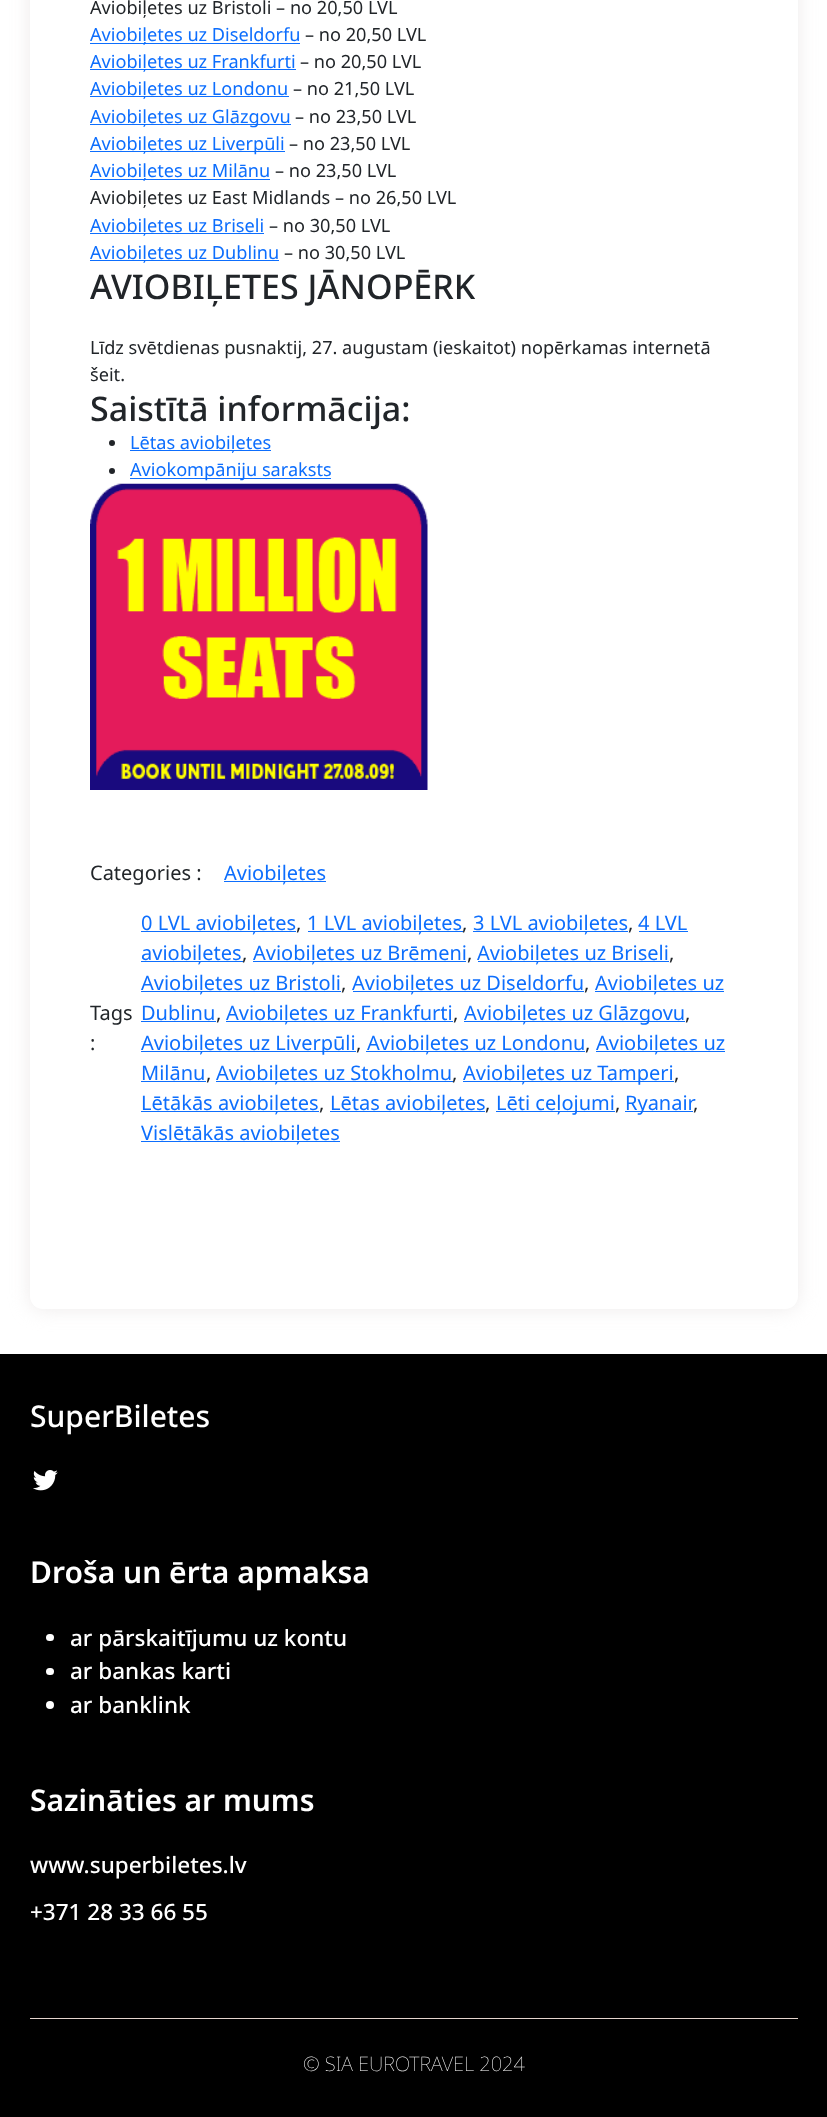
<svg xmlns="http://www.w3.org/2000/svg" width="827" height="2117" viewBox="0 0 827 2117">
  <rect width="100%" height="100%" fill="rgb(255,255,255)"/>
  <rect x="30" y="-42" width="768" height="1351" rx="13" fill="rgba(229,226,226,0.71)" filter="blur(9.5px)"/>
  <rect x="30" y="-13" width="768" height="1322" rx="13" fill="rgb(255,255,255)"/>
  <text x="90" y="14" font-family="Noto Sans" font-size="18.15" fill="rgb(33,37,41)">Aviobiļetes uz Bristoli – no 20,50 LVL</text>
  <rect x="90" y="43" width="210" height="1" fill="rgb(13,110,253)"/>
  <text x="90" y="41" font-family="Noto Sans" font-size="18.15" fill="rgb(13,110,253)">Aviobiļetes uz Diseldorfu</text>
  <text x="305" y="41" font-family="Noto Sans" font-size="18.15" fill="rgb(33,37,41)">– no 20,50 LVL</text>
  <rect x="90" y="69" width="206" height="1" fill="rgb(13,110,253)"/>
  <text x="90" y="68" font-family="Noto Sans" font-size="18.15" fill="rgb(13,110,253)">Aviobiļetes uz Frankfurti</text>
  <text x="300" y="68" font-family="Noto Sans" font-size="18.15" fill="rgb(33,37,41)">– no 20,50 LVL</text>
  <rect x="90" y="96" width="199" height="1" fill="rgb(13,110,253)"/>
  <text x="90" y="95" font-family="Noto Sans" font-size="18.15" fill="rgb(13,110,253)">Aviobiļetes uz Londonu</text>
  <text x="293" y="95" font-family="Noto Sans" font-size="18.15" fill="rgb(33,37,41)">– no 21,50 LVL</text>
  <rect x="90" y="124" width="201" height="1" fill="rgb(13,110,253)"/>
  <text x="90" y="123" font-family="Noto Sans" font-size="18.15" fill="rgb(13,110,253)">Aviobiļetes uz Glāzgovu</text>
  <text x="295" y="123" font-family="Noto Sans" font-size="18.15" fill="rgb(33,37,41)">– no 23,50 LVL</text>
  <rect x="90" y="151" width="195" height="1" fill="rgb(13,110,253)"/>
  <text x="90" y="150" font-family="Noto Sans" font-size="18.15" fill="rgb(13,110,253)">Aviobiļetes uz Liverpūli</text>
  <text x="289" y="150" font-family="Noto Sans" font-size="18.15" fill="rgb(33,37,41)">– no 23,50 LVL</text>
  <rect x="90" y="179" width="180" height="1" fill="rgb(13,110,253)"/>
  <text x="90" y="177" font-family="Noto Sans" font-size="18.15" fill="rgb(13,110,253)">Aviobiļetes uz Milānu</text>
  <g font-family="Noto Sans" font-size="18.15" fill="rgb(33,37,41)">
    <text x="275" y="177">– no 23,50 LVL</text>
    <text x="90" y="204">Aviobiļetes uz East Midlands – no 26,50 LVL</text>
  </g>
  <rect x="90" y="233" width="174" height="1" fill="rgb(13,110,253)"/>
  <text x="90" y="232" font-family="Noto Sans" font-size="18.15" fill="rgb(13,110,253)">Aviobiļetes uz Briseli</text>
  <text x="269" y="232" font-family="Noto Sans" font-size="18.15" fill="rgb(33,37,41)">– no 30,50 LVL</text>
  <rect x="90" y="260" width="189" height="1" fill="rgb(13,110,253)"/>
  <text x="90" y="259" font-family="Noto Sans" font-size="18.15" fill="rgb(13,110,253)">Aviobiļetes uz Dublinu</text>
  <text x="284" y="259" font-family="Noto Sans" font-size="18.15" fill="rgb(33,37,41)">– no 30,50 LVL</text>
  <text x="90" y="299" font-family="Noto Sans" font-size="34" font-weight="500" fill="rgb(33,37,41)">AVIOBIĻETES JĀNOPĒRK</text>
  <g font-family="Noto Sans" font-size="18.15" fill="rgb(33,37,41)">
    <text>
      <tspan x="90" y="354">Līdz svētdienas pusnaktij, 27. augustam (ieskaitot) nopērkamas internetā</tspan>
      <tspan x="90" y="381">šeit.</tspan>
    </text>
  </g>
  <text x="90" y="421" font-family="Noto Sans" font-size="34" font-weight="500" fill="rgb(33,37,41)">Saistītā informācija:</text>
  <circle cx="112" cy="443" r="3" fill="rgb(33,37,41)"/>
  <rect x="130" y="450" width="141" height="1" fill="rgb(13,110,253)"/>
  <text x="130" y="449" font-family="Noto Sans" font-size="18.15" fill="rgb(13,110,253)">Lētas aviobiļetes</text>
  <circle cx="112" cy="471" r="3" fill="rgb(33,37,41)"/>
  <rect x="130" y="478" width="201" height="1" fill="rgb(13,110,253)"/>
  <text x="130" y="476" font-family="Noto Sans" font-size="18.15" fill="rgb(13,110,253)">Aviokompāniju saraksts</text>
  <image x="90" y="483" width="338" height="307" href="pic1.png"/>
  <text x="90" y="880" font-family="Noto Sans" font-size="20" fill="rgb(33,37,41)">Categories :</text>
  <rect x="224" y="881" width="102" height="1" fill="rgb(13,110,253)"/>
  <text x="224" y="880" font-family="Noto Sans" font-size="20" fill="rgb(13,110,253)">Aviobiļetes</text>
  <g font-family="Noto Sans" font-size="20" fill="rgb(33,37,41)">
    <text>
      <tspan x="90" y="1020">Tags</tspan>
      <tspan x="90" y="1050">:</tspan>
    </text>
  </g>
  <rect x="141" y="931" width="155" height="1" fill="rgb(13,110,253)"/>
  <text x="141" y="930" font-family="Noto Sans" font-size="20" fill="rgb(13,110,253)">0 LVL aviobiļetes</text>
  <text x="296" y="930" font-family="Noto Sans" font-size="20" fill="rgb(33,37,41)">,</text>
  <rect x="308" y="931" width="155" height="1" fill="rgb(13,110,253)"/>
  <text x="307" y="930" font-family="Noto Sans" font-size="20" fill="rgb(13,110,253)">1 LVL aviobiļetes</text>
  <text x="462" y="930" font-family="Noto Sans" font-size="20" fill="rgb(33,37,41)">,</text>
  <rect x="473" y="931" width="155" height="1" fill="rgb(13,110,253)"/>
  <text x="473" y="930" font-family="Noto Sans" font-size="20" fill="rgb(13,110,253)">3 LVL aviobiļetes</text>
  <text x="628" y="930" font-family="Noto Sans" font-size="20" fill="rgb(33,37,41)">,</text>
  <text x="638" y="930" font-family="Noto Sans" font-size="20" fill="rgb(13,110,253)">4 LVL</text>
  <rect x="639" y="931" width="49" height="1" fill="rgb(13,110,253)"/>
  <rect x="141" y="961" width="102" height="1" fill="rgb(13,110,253)"/>
  <text x="141" y="960" font-family="Noto Sans" font-size="20" fill="rgb(13,110,253)">aviobiļetes</text>
  <text x="242" y="960" font-family="Noto Sans" font-size="20" fill="rgb(33,37,41)">,</text>
  <rect x="253" y="961" width="213" height="1" fill="rgb(13,110,253)"/>
  <text x="253" y="960" font-family="Noto Sans" font-size="20" fill="rgb(13,110,253)">Aviobiļetes uz Brēmeni</text>
  <text x="467" y="960" font-family="Noto Sans" font-size="20" fill="rgb(33,37,41)">,</text>
  <rect x="478" y="961" width="191" height="1" fill="rgb(13,110,253)"/>
  <text x="477" y="960" font-family="Noto Sans" font-size="20" fill="rgb(13,110,253)">Aviobiļetes uz Briseli</text>
  <text x="669" y="960" font-family="Noto Sans" font-size="20" fill="rgb(33,37,41)">,</text>
  <rect x="141" y="991" width="200" height="1" fill="rgb(13,110,253)"/>
  <text x="141" y="990" font-family="Noto Sans" font-size="20" fill="rgb(13,110,253)">Aviobiļetes uz Bristoli</text>
  <text x="341" y="990" font-family="Noto Sans" font-size="20" fill="rgb(33,37,41)">,</text>
  <rect x="353" y="991" width="231" height="1" fill="rgb(13,110,253)"/>
  <text x="352" y="990" font-family="Noto Sans" font-size="20" fill="rgb(13,110,253)">Aviobiļetes uz Diseldorfu</text>
  <text x="584" y="990" font-family="Noto Sans" font-size="20" fill="rgb(33,37,41)">,</text>
  <rect x="595" y="991" width="129" height="1" fill="rgb(13,110,253)"/>
  <g font-family="Noto Sans" font-size="20" fill="rgb(13,110,253)">
    <text x="595" y="990">Aviobiļetes uz</text>
    <text x="141" y="1020">Dublinu</text>
  </g>
  <rect x="141" y="1021" width="75" height="1" fill="rgb(13,110,253)"/>
  <text x="216" y="1020" font-family="Noto Sans" font-size="20" fill="rgb(33,37,41)">,</text>
  <rect x="226" y="1021" width="227" height="1" fill="rgb(13,110,253)"/>
  <text x="226" y="1020" font-family="Noto Sans" font-size="20" fill="rgb(13,110,253)">Aviobiļetes uz Frankfurti</text>
  <text x="453" y="1020" font-family="Noto Sans" font-size="20" fill="rgb(33,37,41)">,</text>
  <rect x="464" y="1021" width="221" height="1" fill="rgb(13,110,253)"/>
  <text x="464" y="1020" font-family="Noto Sans" font-size="20" fill="rgb(13,110,253)">Aviobiļetes uz Glāzgovu</text>
  <text x="685" y="1020" font-family="Noto Sans" font-size="20" fill="rgb(33,37,41)">,</text>
  <rect x="141" y="1051" width="215" height="1" fill="rgb(13,110,253)"/>
  <text x="141" y="1050" font-family="Noto Sans" font-size="20" fill="rgb(13,110,253)">Aviobiļetes uz Liverpūli</text>
  <text x="356" y="1050" font-family="Noto Sans" font-size="20" fill="rgb(33,37,41)">,</text>
  <rect x="366" y="1051" width="219" height="1" fill="rgb(13,110,253)"/>
  <text x="367" y="1050" font-family="Noto Sans" font-size="20" fill="rgb(13,110,253)">Aviobiļetes uz Londonu</text>
  <text x="585" y="1050" font-family="Noto Sans" font-size="20" fill="rgb(33,37,41)">,</text>
  <rect x="596" y="1051" width="129" height="1" fill="rgb(13,110,253)"/>
  <g font-family="Noto Sans" font-size="20" fill="rgb(13,110,253)">
    <text x="596" y="1050">Aviobiļetes uz</text>
    <text x="141" y="1080">Milānu</text>
  </g>
  <rect x="141" y="1081" width="65" height="1" fill="rgb(13,110,253)"/>
  <text x="206" y="1080" font-family="Noto Sans" font-size="20" fill="rgb(33,37,41)">,</text>
  <rect x="216" y="1081" width="237" height="1" fill="rgb(13,110,253)"/>
  <text x="216" y="1080" font-family="Noto Sans" font-size="20" fill="rgb(13,110,253)">Aviobiļetes uz Stokholmu</text>
  <text x="452" y="1080" font-family="Noto Sans" font-size="20" fill="rgb(33,37,41)">,</text>
  <rect x="463" y="1081" width="211" height="1" fill="rgb(13,110,253)"/>
  <text x="463" y="1080" font-family="Noto Sans" font-size="20" fill="rgb(13,110,253)">Aviobiļetes uz Tamperi</text>
  <text x="674" y="1080" font-family="Noto Sans" font-size="20" fill="rgb(33,37,41)">,</text>
  <rect x="141" y="1111" width="178" height="1" fill="rgb(13,110,253)"/>
  <text x="141" y="1110" font-family="Noto Sans" font-size="20" fill="rgb(13,110,253)">Lētākās aviobiļetes</text>
  <text x="319" y="1110" font-family="Noto Sans" font-size="20" fill="rgb(33,37,41)">,</text>
  <rect x="330" y="1111" width="155" height="1" fill="rgb(13,110,253)"/>
  <text x="330" y="1110" font-family="Noto Sans" font-size="20" fill="rgb(13,110,253)">Lētas aviobiļetes</text>
  <text x="485" y="1110" font-family="Noto Sans" font-size="20" fill="rgb(33,37,41)">,</text>
  <rect x="496" y="1111" width="119" height="1" fill="rgb(13,110,253)"/>
  <text x="496" y="1110" font-family="Noto Sans" font-size="20" fill="rgb(13,110,253)">Lēti ceļojumi</text>
  <text x="615" y="1110" font-family="Noto Sans" font-size="20" fill="rgb(33,37,41)">,</text>
  <rect x="625" y="1111" width="68" height="1" fill="rgb(13,110,253)"/>
  <text x="625" y="1110" font-family="Noto Sans" font-size="20" fill="rgb(13,110,253)">Ryanair</text>
  <text x="693" y="1110" font-family="Noto Sans" font-size="20" fill="rgb(33,37,41)">,</text>
  <rect x="141" y="1141" width="199" height="1" fill="rgb(13,110,253)"/>
  <text x="141" y="1140" font-family="Noto Sans" font-size="20" fill="rgb(13,110,253)">Vislētākās aviobiļetes</text>
  <rect x="0" y="1354" width="827" height="763" fill="rgb(0,0,0)"/>
  <text x="30" y="1427" font-family="Noto Sans" font-size="30" font-weight="500" fill="rgb(255,255,255)">SuperBiletes</text>
  <image x="33" y="1470" width="25" height="21" href="pic2.png"/>
  <text x="30" y="1583" font-family="Noto Sans" font-size="30" font-weight="600" fill="rgb(255,255,255)">Droša un ērta apmaksa</text>
  <rect x="46" y="1634" width="8" height="7" rx="3.5" fill="rgb(255,255,255)"/>
  <text x="70" y="1646" font-family="Noto Sans" font-size="22.5" font-weight="500" fill="rgb(255,255,255)">ar pārskaitījumu uz kontu</text>
  <rect x="46" y="1668" width="8" height="7" rx="3.5" fill="rgb(255,255,255)"/>
  <text x="70" y="1679" font-family="Noto Sans" font-size="22.5" font-weight="500" fill="rgb(255,255,255)">ar bankas karti</text>
  <circle cx="50" cy="1705" r="4" fill="rgb(255,255,255)"/>
  <text x="70" y="1713" font-family="Noto Sans" font-size="22.5" font-weight="500" fill="rgb(255,255,255)">ar banklink</text>
  <text x="30" y="1811" font-family="Noto Sans" font-size="30" font-weight="600" fill="rgb(255,255,255)">Sazināties ar mums</text>
  <g font-family="Noto Sans" font-size="22.5" font-weight="500" fill="rgb(255,255,255)">
    <text x="30" y="1873">www.superbiletes.lv</text>
    <text x="30" y="1920">+371 28 33 66 55</text>
  </g>
  <rect x="30" y="2018" width="768" height="1" fill="rgb(227,211,204)"/>
  <text x="303" y="2071" font-family="Noto Sans" font-size="20" font-weight="100" fill="rgb(255,255,255)">© SIA EUROTRAVEL 2024</text>
</svg>
